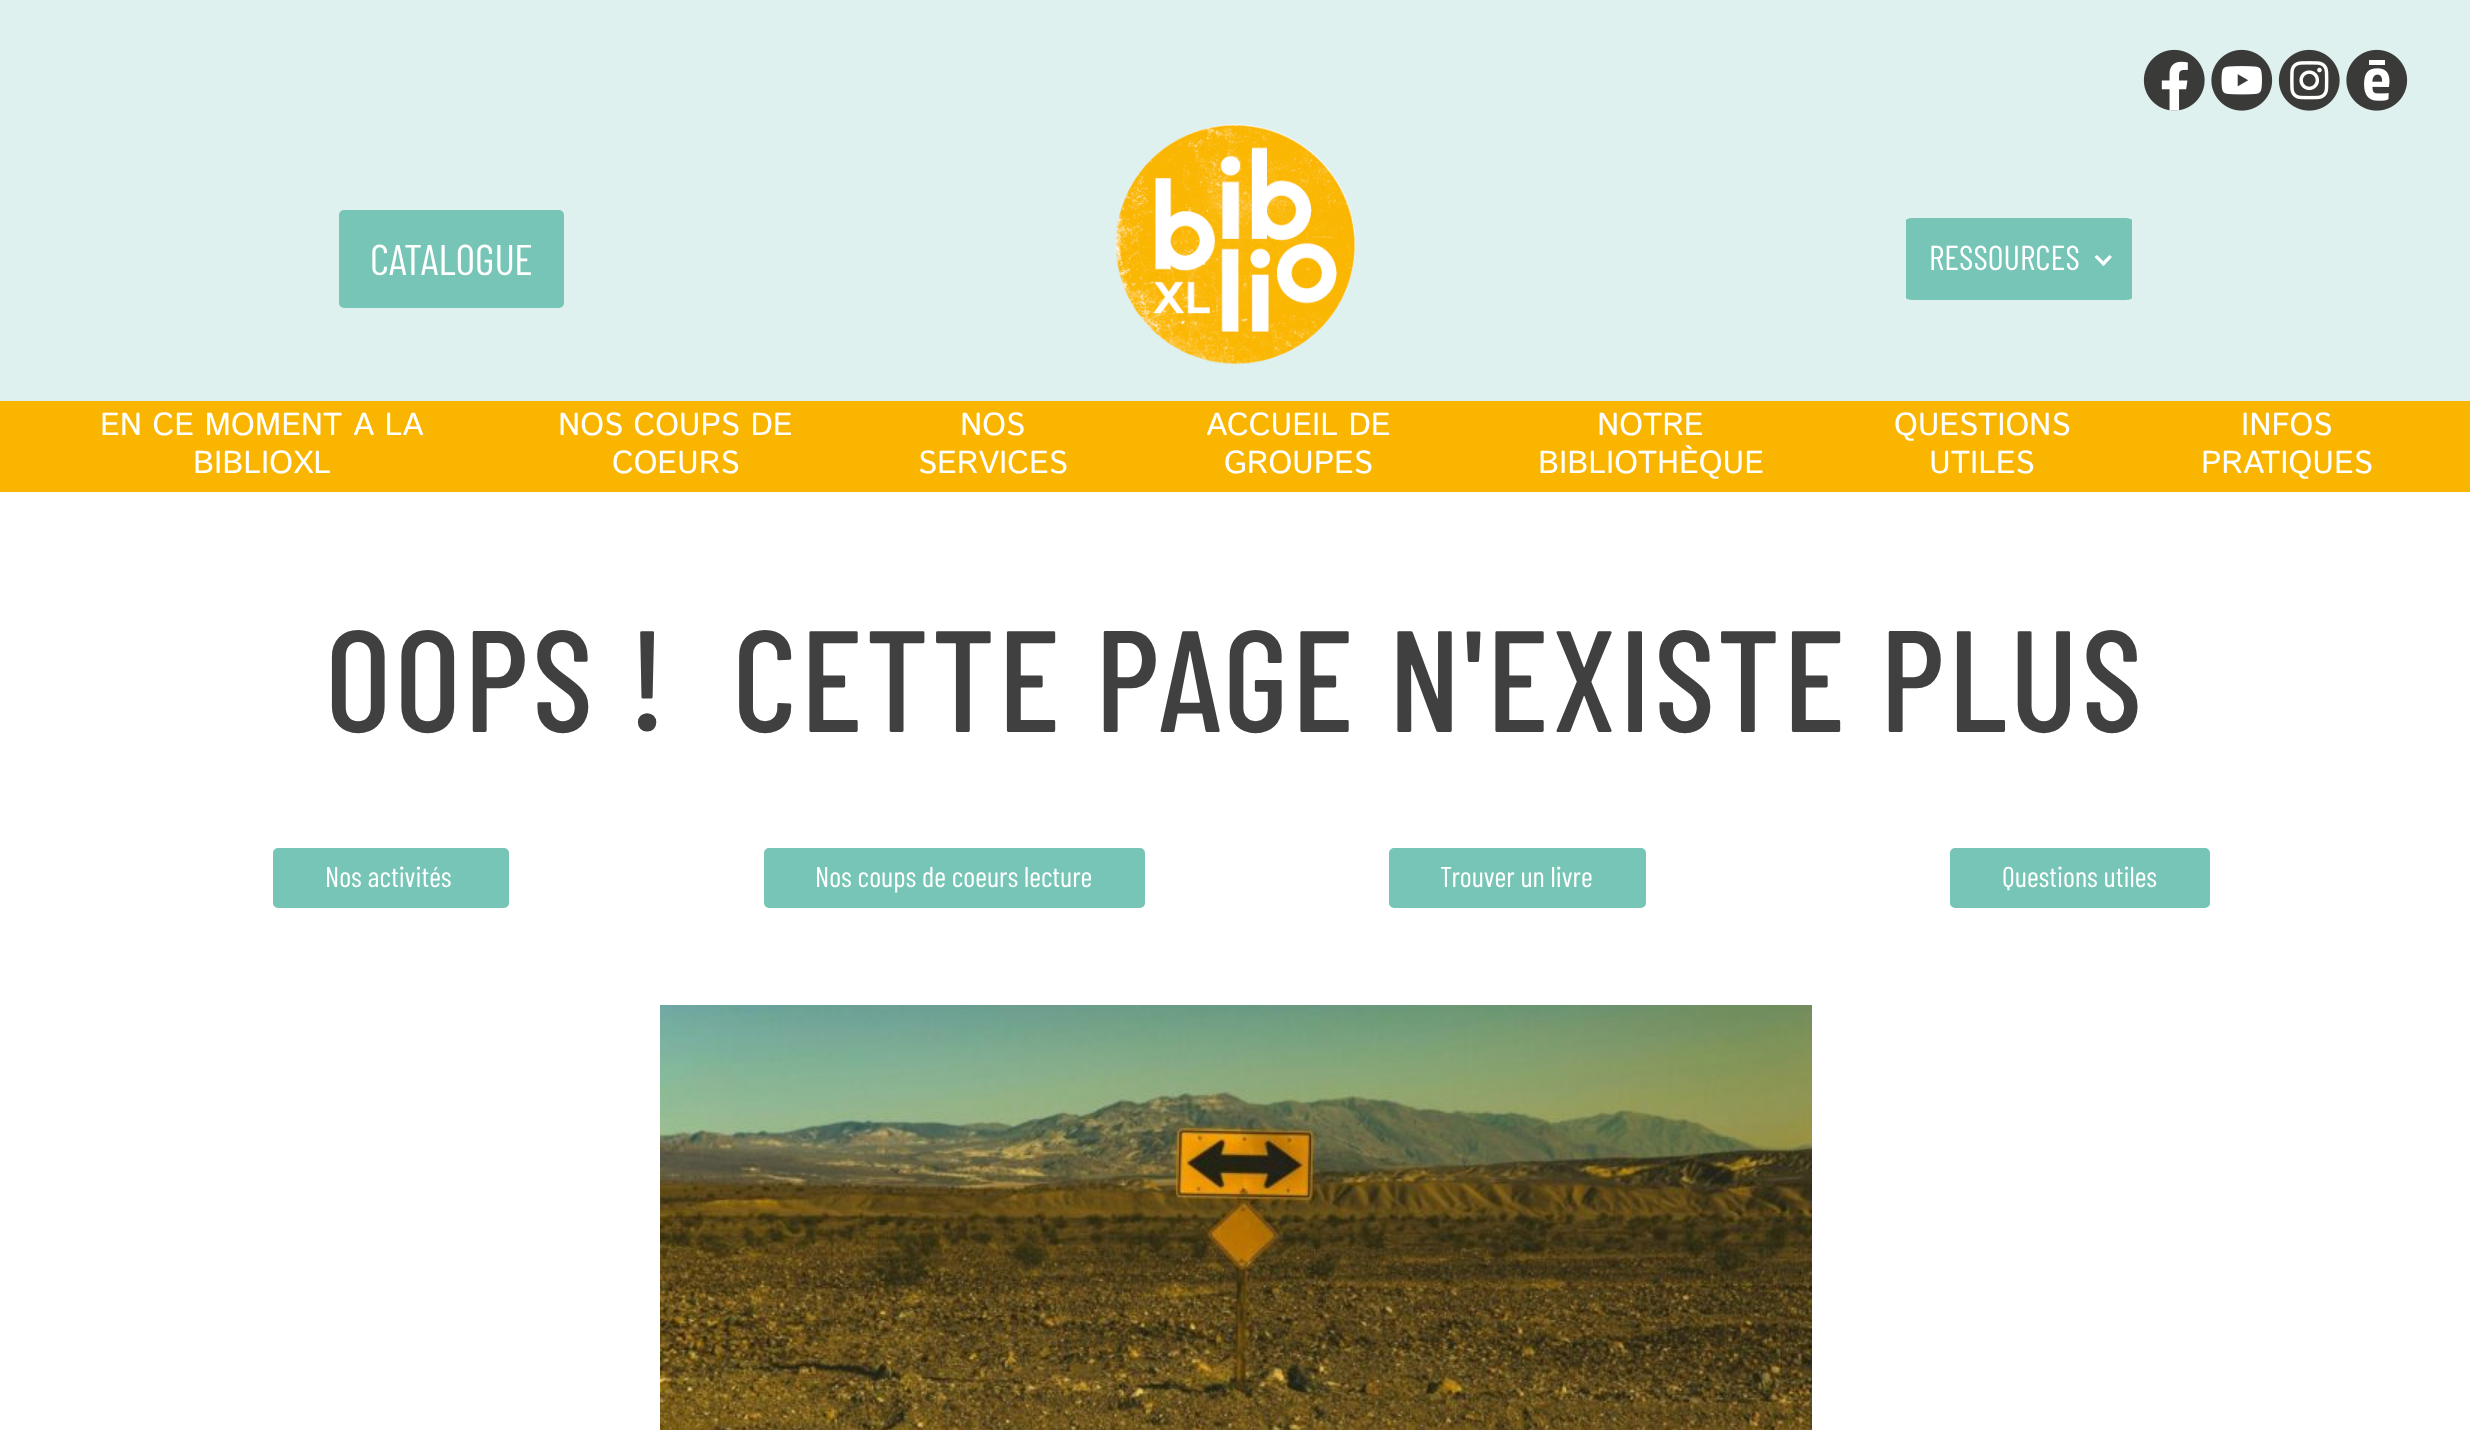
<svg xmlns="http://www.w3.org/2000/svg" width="2470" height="1430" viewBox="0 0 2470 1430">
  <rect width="100%" height="100%" fill="rgb(255,255,255)"/>
  <rect x="0" y="0" width="2470" height="401" fill="rgb(223,241,239)"/>
  <image x="2143" y="49" width="62" height="62" href="pic1.png"/>
  <image x="2211" y="49" width="62" height="62" href="pic2.png"/>
  <image x="2278" y="49" width="62" height="62" href="pic3.png"/>
  <image x="2346" y="49" width="62" height="62" href="pic4.png"/>
  <rect x="340" y="211" width="223" height="96" rx="4" fill="rgb(119,197,182)" stroke="rgb(119,197,182)" stroke-width="2"/>
  <text x="370" y="275" font-family="Barlow Condensed" font-size="43" fill="rgb(255,255,255)">CATALOGUE</text>
  <image x="1115" y="124" width="241" height="241" href="pic5.png"/>
  <path d="M1913 218H2125C2128 218 2132 219 2132 220V298C2132 299 2128 300 2125 300H1913C1910 300 1906 299 1906 298V220C1906 219 1910 218 1913 218Z" fill="rgb(119,197,182)"/>
  <text x="1929" y="270" font-family="Barlow Condensed" font-size="34.5" fill="rgb(255,255,255)">RESSOURCES</text>
  <path d="M2112 257L2103.5 266L2101 263.5L2109.5 255Z" fill="rgb(255,255,255)"/>
  <path d="M2105.5 263.5L2103.5 266L2094.5 257L2097 255Z" fill="rgb(255,255,255)"/>
  <rect x="0" y="401" width="2470" height="91" fill="rgb(250,181,0)"/>
  <g font-family="Istok Web" font-size="31.75" fill="rgb(255,255,255)">
    <text x="100" y="435">EN CE MOMENT A LA</text>
    <text x="193" y="473">BIBLIOXL</text>
    <text x="558" y="435">NOS COUPS DE</text>
    <text x="612" y="473">COEURS</text>
    <text x="960" y="435">NOS</text>
    <text x="918" y="473">SERVICES</text>
    <text x="1206" y="435">ACCUEIL DE</text>
    <text x="1224" y="473">GROUPES</text>
    <text x="1597" y="435">NOTRE</text>
    <text x="1538" y="473">BIBLIOTHÈQUE</text>
    <text x="1894" y="435">QUESTIONS</text>
    <text x="1929" y="473">UTILES</text>
    <text x="2241" y="435">INFOS</text>
    <text x="2201" y="473">PRATIQUES</text>
  </g>
  <text x="325" y="732" font-family="Barlow Condensed" font-size="144" font-weight="500" letter-spacing="3" fill="rgb(64,64,64)" xml:space="preserve">OOPS !  CETTE PAGE N'EXISTE PLUS</text>
  <rect x="274" y="849" width="234" height="58" rx="4" fill="rgb(119,197,182)" stroke="rgb(119,197,182)" stroke-width="2"/>
  <text x="325" y="887" font-family="Barlow Condensed" font-size="28.75" fill="rgb(255,255,255)">Nos activités</text>
  <rect x="765" y="849" width="379" height="58" rx="4" fill="rgb(119,197,182)" stroke="rgb(119,197,182)" stroke-width="2"/>
  <text x="815" y="887" font-family="Barlow Condensed" font-size="28.75" fill="rgb(255,255,255)">Nos coups de coeurs lecture</text>
  <rect x="1390" y="849" width="255" height="58" rx="4" fill="rgb(119,197,182)" stroke="rgb(119,197,182)" stroke-width="2"/>
  <text x="1440" y="887" font-family="Barlow Condensed" font-size="28.75" fill="rgb(255,255,255)">Trouver un livre</text>
  <rect x="1951" y="849" width="258" height="58" rx="4" fill="rgb(119,197,182)" stroke="rgb(119,197,182)" stroke-width="2"/>
  <text x="2002" y="887" font-family="Barlow Condensed" font-size="28.75" fill="rgb(255,255,255)">Questions utiles</text>
  <image x="660" y="1005" width="1152" height="425" href="pic6.png"/>
</svg>
